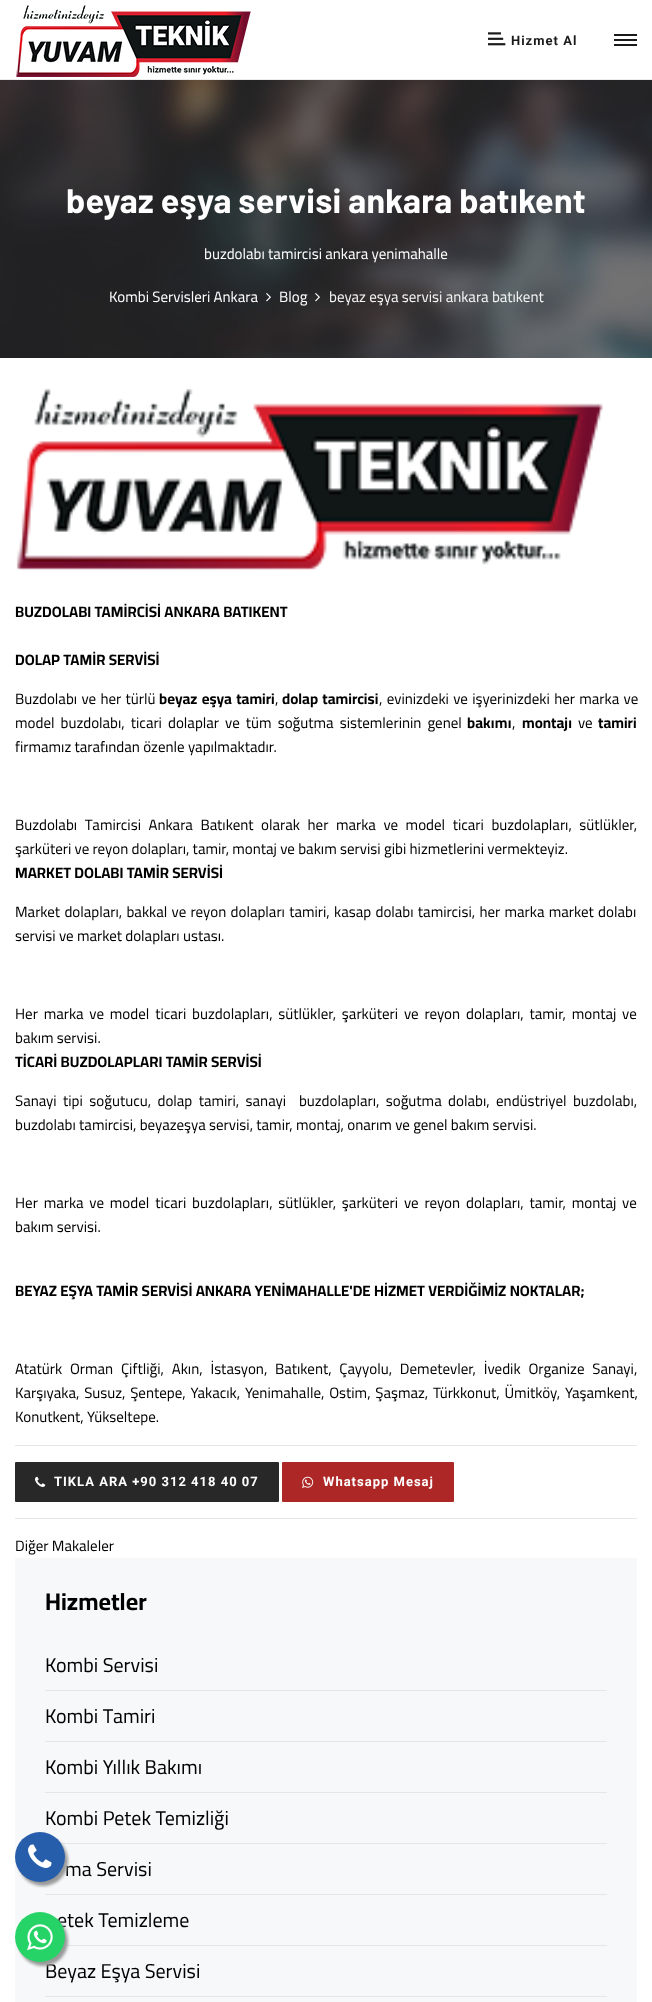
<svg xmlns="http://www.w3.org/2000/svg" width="652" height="2002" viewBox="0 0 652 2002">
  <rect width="100%" height="100%" fill="rgb(255,255,255)"/>
  <rect x="0" y="79" width="652" height="1" fill="rgb(237,237,237)"/>
  <image x="16" y="5" width="235" height="72" href="pic1.png"/>
  <image x="488" y="32" width="18" height="14" href="pic2.png"/>
  <text x="511" y="45" font-family="Roboto" font-size="13" font-weight="bold" letter-spacing="1" fill="rgb(27,26,26)">Hizmet Al</text>
  <rect x="614" y="34" width="23" height="2" fill="rgb(27,26,26)"/>
  <rect x="614" y="39" width="23" height="2" fill="rgb(27,26,26)"/>
  <rect x="614" y="44" width="23" height="2" fill="rgb(27,26,26)"/>
  <image x="0" y="80" width="652" height="278" href="pic3.png"/>
  <text x="66" y="213" word-spacing="-0.5" font-family="Barlow" font-size="34" font-weight="bold" letter-spacing="0.3" fill="rgb(255,255,255)">beyaz eşya servisi ankara batıkent</text>
  <g font-family="Cairo" font-size="15" fill="rgb(255,255,255)">
    <text x="204" y="259">buzdolabı tamircisi ankara yenimahalle</text>
    <text x="109" y="302">Kombi Servisleri Ankara</text>
  </g>
  <image x="266" y="293" width="5" height="9" href="pic4.png"/>
  <text x="279" y="302" font-family="Cairo" font-size="15" fill="rgb(255,255,255)">Blog</text>
  <image x="315" y="293" width="5" height="9" href="pic5.png"/>
  <text x="329" y="302" font-family="Cairo" font-size="15" fill="rgb(244,244,244)">beyaz eşya servisi ankara batıkent</text>
  <image x="16" y="388" width="587" height="182" href="pic6.png"/>
  <g font-family="Cairo" font-size="15" font-weight="bold" fill="rgb(0,0,0)">
    <text x="15" y="617">BUZDOLABI TAMİRCİSİ ANKARA BATIKENT</text>
    <text x="15" y="665">DOLAP TAMİR SERVİSİ</text>
  </g>
  <text x="15" y="704" word-spacing="1" font-family="Cairo" font-size="15" fill="rgb(0,0,0)">Buzdolabı ve her türlü</text>
  <text x="159" y="704" word-spacing="1" font-family="Cairo" font-size="15" font-weight="bold" fill="rgb(0,0,0)">beyaz eşya tamiri</text>
  <text x="275" y="704" font-family="Cairo" font-size="15" fill="rgb(0,0,0)">,</text>
  <text x="282" y="704" word-spacing="1" font-family="Cairo" font-size="15" font-weight="bold" fill="rgb(0,0,0)">dolap tamircisi</text>
  <g font-family="Cairo" font-size="15" fill="rgb(0,0,0)">
    <text x="379" y="704" word-spacing="1">, evinizdeki ve işyerinizdeki her marka ve</text>
    <text x="15" y="728" word-spacing="2.75">model buzdolabı, ticari dolaplar ve tüm soğutma sistemlerinin genel</text>
  </g>
  <text x="467" y="728" font-family="Cairo" font-size="15" font-weight="bold" fill="rgb(0,0,0)">bakımı</text>
  <text x="512" y="728" font-family="Cairo" font-size="15" fill="rgb(0,0,0)">,</text>
  <text x="522" y="728" font-family="Cairo" font-size="15" font-weight="bold" fill="rgb(0,0,0)">montajı</text>
  <text x="578" y="728" font-family="Cairo" font-size="15" fill="rgb(0,0,0)">ve</text>
  <text x="598" y="728" font-family="Cairo" font-size="15" font-weight="bold" fill="rgb(0,0,0)">tamiri</text>
  <g font-family="Cairo" font-size="15" fill="rgb(0,0,0)">
    <text x="15" y="752">firmamız tarafından özenle yapılmaktadır.</text>
    <text>
      <tspan x="15" y="830" word-spacing="4.25">Buzdolabı Tamircisi Ankara Batıkent olarak her marka ve model ticari buzdolapları, sütlükler,</tspan>
      <tspan x="15" y="854">şarküteri ve reyon dolapları, tamir, montaj ve bakım servisi gibi hizmetlerini vermekteyiz.</tspan>
    </text>
  </g>
  <text x="15" y="878" font-family="Cairo" font-size="15" font-weight="bold" fill="rgb(0,0,0)">MARKET DOLABI TAMİR SERVİSİ</text>
  <g font-family="Cairo" font-size="15" fill="rgb(0,0,0)">
    <text>
      <tspan x="15" y="917" word-spacing="1">Market dolapları, bakkal ve reyon dolapları tamiri, kasap dolabı tamircisi, her marka market dolabı</tspan>
      <tspan x="15" y="941">servisi ve market dolapları ustası.</tspan>
    </text>
    <text>
      <tspan x="15" y="1019" word-spacing="2.5">Her marka ve model ticari buzdolapları, sütlükler, şarküteri ve reyon dolapları, tamir, montaj ve</tspan>
      <tspan x="15" y="1043">bakım servisi.</tspan>
    </text>
  </g>
  <text x="15" y="1067" font-family="Cairo" font-size="15" font-weight="bold" fill="rgb(0,0,0)">TİCARİ BUZDOLAPLARI TAMİR SERVİSİ</text>
  <g font-family="Cairo" font-size="15" fill="rgb(0,0,0)">
    <text xml:space="preserve"><tspan x="15" y="1106" word-spacing="3.1">Sanayi tipi soğutucu, dolap tamiri, sanayi  buzdolapları, soğutma dolabı, endüstriyel buzdolabı,</tspan><tspan x="15" y="1130">buzdolabı tamircisi, beyazeşya servisi, tamir, montaj, onarım ve genel bakım servisi.</tspan></text>
    <text>
      <tspan x="15" y="1208" word-spacing="2.5">Her marka ve model ticari buzdolapları, sütlükler, şarküteri ve reyon dolapları, tamir, montaj ve</tspan>
      <tspan x="15" y="1232">bakım servisi.</tspan>
    </text>
  </g>
  <text x="15" y="1296" font-family="Cairo" font-size="15" font-weight="bold" fill="rgb(0,0,0)">BEYAZ EŞYA TAMİR SERVİSİ ANKARA YENİMAHALLE'DE HİZMET VERDİĞİMİZ NOKTALAR;</text>
  <g font-family="Cairo" font-size="15" fill="rgb(0,0,0)">
    <text>
      <tspan x="15" y="1374" word-spacing="4.5">Atatürk Orman Çiftliği, Akın, İstasyon, Batıkent, Çayyolu, Demetevler, İvedik Organize Sanayi,</tspan>
      <tspan x="15" y="1398" word-spacing="1.5">Karşıyaka, Susuz, Şentepe, Yakacık, Yenimahalle, Ostim, Şaşmaz, Türkkonut, Ümitköy, Yaşamkent,</tspan>
      <tspan x="15" y="1422">Konutkent, Yükseltepe.</tspan>
    </text>
  </g>
  <rect x="15" y="1445" width="622" height="1" fill="rgb(230,230,230)"/>
  <rect x="15" y="1462" width="264" height="40" rx="1" fill="rgb(40,40,40)"/>
  <image x="35" y="1476" width="11" height="11" href="pic7.png"/>
  <text x="54" y="1486" font-family="Roboto" font-size="13" font-weight="bold" letter-spacing="1" fill="rgb(255,255,255)">TIKLA ARA +90 312 418 40 07</text>
  <rect x="282" y="1462" width="172" height="40" rx="1" fill="rgb(174,39,39)"/>
  <image x="302" y="1476" width="12" height="12" href="pic8.png"/>
  <text x="323" y="1486" font-family="Roboto" font-size="13" font-weight="bold" letter-spacing="1" fill="rgb(255,255,255)">Whatsapp Mesaj</text>
  <rect x="15" y="1518" width="622" height="1" fill="rgb(230,230,230)"/>
  <text x="15" y="1551" font-family="Cairo" font-size="15" fill="rgb(0,0,0)">Diğer Makaleler</text>
  <rect x="15" y="1558" width="622" height="444" fill="rgb(247,248,249)"/>
  <text x="45" y="1610" font-family="Cairo" font-size="24" font-weight="bold" fill="rgb(0,0,0)">Hizmetler</text>
  <rect x="45" y="1690" width="562" height="1" fill="rgb(229,230,231)"/>
  <text x="45" y="1672" font-family="Cairo" font-size="20" fill="rgb(0,0,0)">Kombi Servisi</text>
  <rect x="45" y="1741" width="562" height="1" fill="rgb(229,230,231)"/>
  <text x="45" y="1723" font-family="Cairo" font-size="20" fill="rgb(0,0,0)">Kombi Tamiri</text>
  <rect x="45" y="1792" width="562" height="1" fill="rgb(229,230,231)"/>
  <text x="45" y="1774" font-family="Cairo" font-size="20" fill="rgb(0,0,0)">Kombi Yıllık Bakımı</text>
  <rect x="60" y="1843" width="547" height="1" fill="rgb(229,230,231)"/>
  <text x="45" y="1825" font-family="Cairo" font-size="20" fill="rgb(0,0,0)">Kombi Petek Temizliği</text>
  <rect x="45" y="1894" width="562" height="1" fill="rgb(229,230,231)"/>
  <text x="65" y="1876" font-family="Cairo" font-size="20" fill="rgb(0,0,0)">ma Servisi</text>
  <rect x="63" y="1945" width="544" height="1" fill="rgb(229,230,231)"/>
  <text x="57" y="1927" font-family="Cairo" font-size="20" fill="rgb(0,0,0)">etek Temizleme</text>
  <rect x="45" y="1996" width="562" height="1" fill="rgb(229,230,231)"/>
  <text x="45" y="1978" font-family="Cairo" font-size="20" fill="rgb(0,0,0)">Beyaz Eşya Servisi</text>
  <rect x="18" y="1836" width="50" height="50" rx="25" fill="rgb(153,153,153)" filter="blur(1.5px)"/>
  <circle cx="40" cy="1857" r="25" fill="rgb(39,94,171)"/>
  <image x="28" y="1844" width="24" height="24" href="pic9.png"/>
  <rect x="18" y="1916" width="50" height="50" rx="25" fill="rgb(153,153,153)" filter="blur(1.5px)"/>
  <circle cx="40" cy="1937" r="25" fill="rgb(37,211,102)"/>
  <image x="27" y="1924" width="26" height="27" href="pic10.png"/>
</svg>
